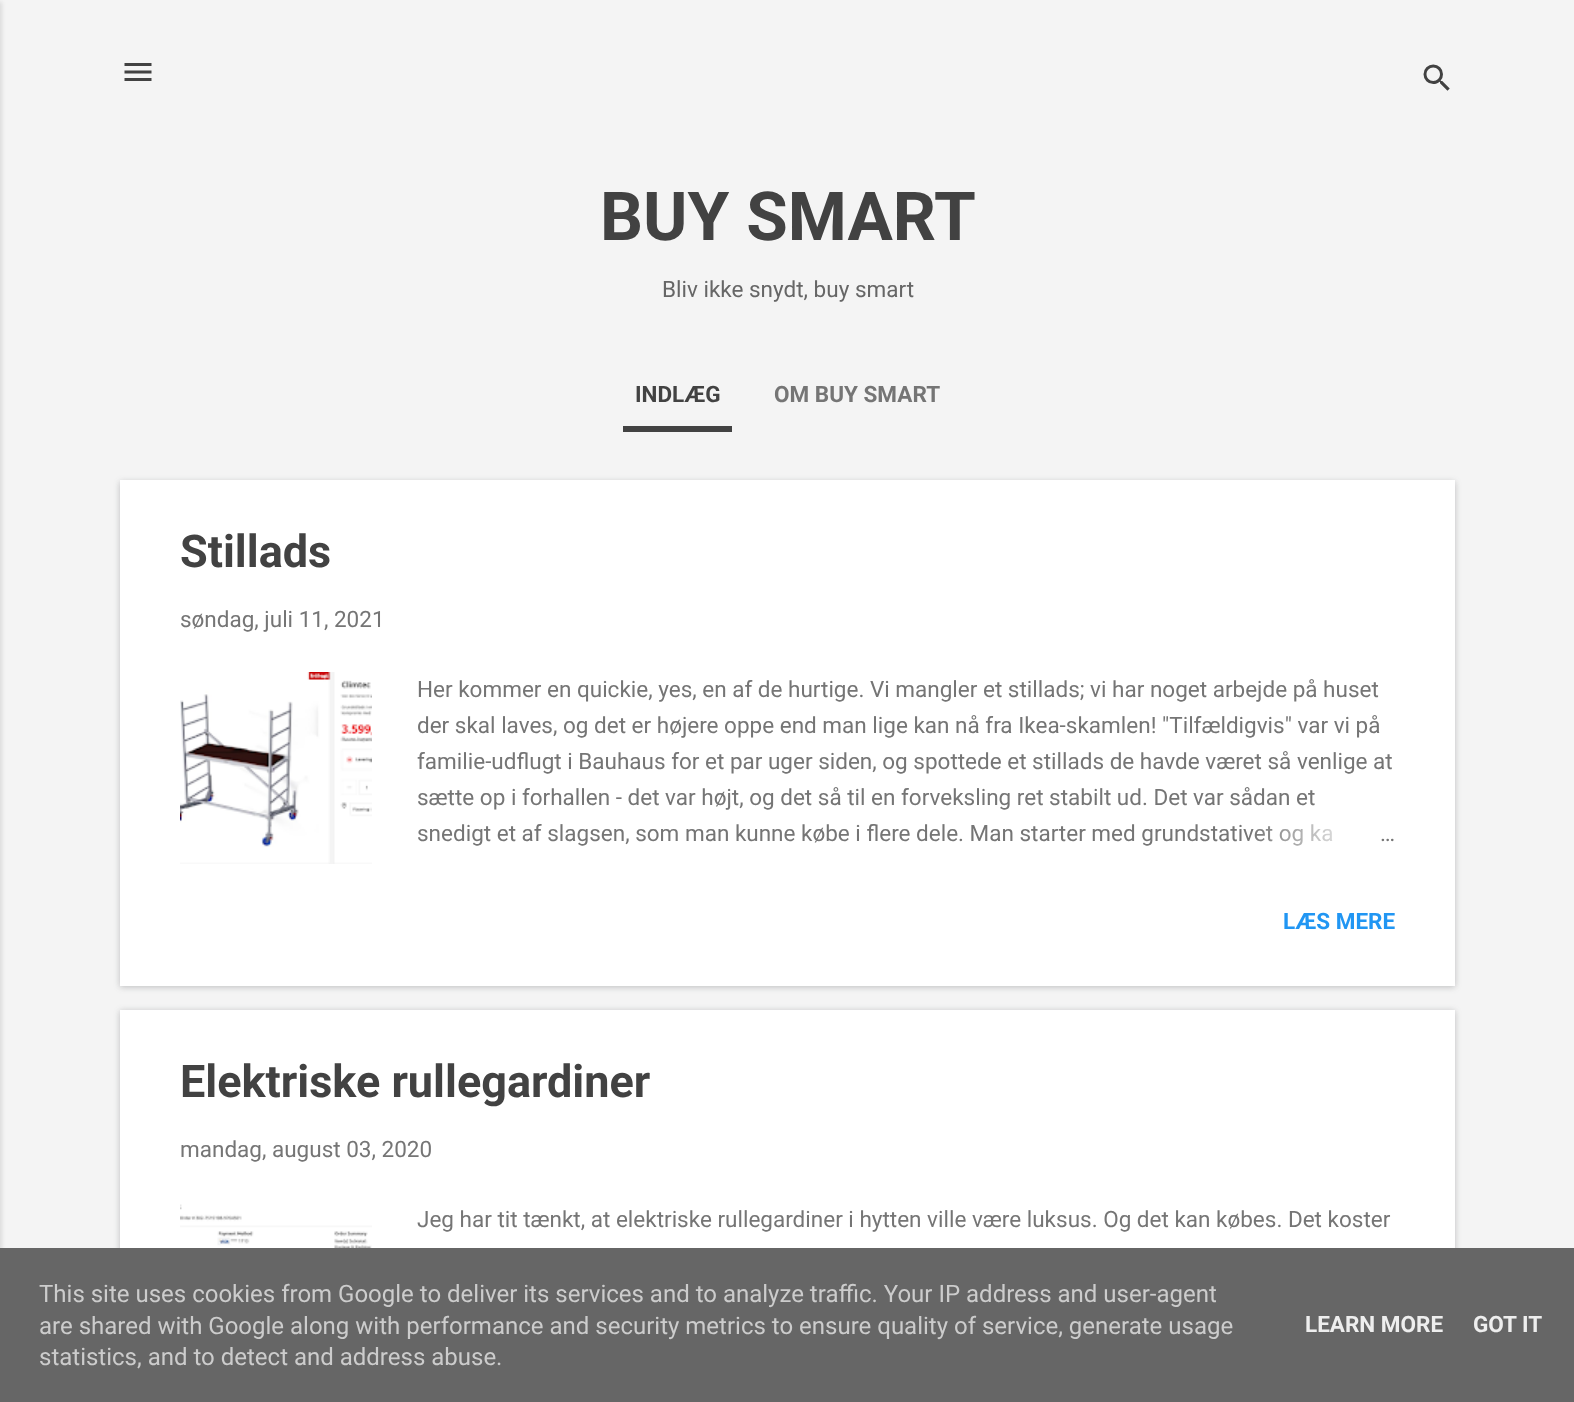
<svg xmlns="http://www.w3.org/2000/svg" width="1574" height="1402" viewBox="0 0 1574 1402">
  <defs>
    <linearGradient id="g1" gradientUnits="userSpaceOnUse" x1="1395" y1="834" x2="1251" y2="834"><stop offset="0" stop-color="rgb(255,255,255)"/><stop offset="0.2" stop-color="rgb(255,255,255)"/><stop offset="1" stop-color="rgb(255,255,255)" stop-opacity="0"/></linearGradient>
  </defs>
  <rect width="100%" height="100%" fill="rgb(244,244,244)"/>
  <rect x="-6" y="2" width="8" height="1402" fill="rgba(0,0,0,0.1)" filter="blur(2px)"/>
  <image x="124" y="63" width="28" height="18" href="pic1.png"/>
  <image x="1423" y="64" width="27" height="27" href="pic2.png"/>
  <text x="600" y="240" font-family="Roboto" font-size="67.5" font-weight="bold" fill="rgb(66,66,66)">BUY SMART</text>
  <text x="662" y="297" font-family="Roboto" font-size="22.5" fill="rgb(102,102,102)">Bliv ikke snydt, buy smart</text>
  <rect x="623" y="426" width="109" height="6" fill="rgb(66,66,66)"/>
  <text x="635" y="402" font-family="Roboto" font-size="22.5" font-weight="bold" fill="rgb(66,66,66)">INDLÆG</text>
  <text x="774" y="402" font-family="Roboto" font-size="22.5" font-weight="bold" fill="rgb(117,117,117)">OM BUY SMART</text>
  <rect x="120" y="482" width="1335" height="505" fill="rgba(60,64,67,0.3)" filter="blur(3px)"/>
  <rect x="120" y="480" width="1335" height="506" fill="rgb(255,255,255)"/>
  <text x="180" y="567" font-family="Roboto" font-size="45" font-weight="bold" fill="rgb(66,66,66)">Stillads</text>
  <text x="180" y="627" font-family="Roboto" font-size="22.5" fill="rgb(117,117,117)">søndag, juli 11, 2021</text>
  <image x="180" y="672" width="192" height="192" href="pic3.png"/>
  <g font-family="Roboto" font-size="22.5" fill="rgb(117,117,117)">
    <text>
      <tspan x="417" y="697">Her kommer en quickie, yes, en af de hurtige. Vi mangler et stillads; vi har noget arbejde på huset</tspan>
      <tspan x="417" y="733">der skal laves, og det er højere oppe end man lige kan nå fra Ikea-skamlen! "Tilfældigvis" var vi på</tspan>
      <tspan x="417" y="769">familie-udflugt i Bauhaus for et par uger siden, og spottede et stillads de havde været så venlige at</tspan>
      <tspan x="417" y="805">sætte op i forhallen - det var højt, og det så til en forveksling ret stabilt ud. Det var sådan et</tspan>
      <tspan x="417" y="841">snedigt et af slagsen, som man kunne købe i flere dele. Man starter med grundstativet og ka</tspan>
    </text>
  </g>
  <rect x="1255" y="824" width="78" height="22" fill="url(#g1)"/>
  <text x="1380" y="841" font-family="Roboto" font-size="22.5" fill="rgb(117,117,117)">…</text>
  <text x="1283" y="929" font-family="Roboto" font-size="22.5" font-weight="bold" fill="rgb(33,150,243)">LÆS MERE</text>
  <rect x="120" y="1011" width="1335" height="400" fill="rgba(60,64,67,0.3)" filter="blur(3px)"/>
  <rect x="120" y="1010" width="1335" height="238" fill="rgb(255,255,255)"/>
  <text x="180" y="1097" font-family="Roboto" font-size="45" font-weight="bold" fill="rgb(66,66,66)">Elektriske rullegardiner</text>
  <text x="180" y="1157" font-family="Roboto" font-size="22.5" fill="rgb(117,117,117)">mandag, august 03, 2020</text>
  <image x="180" y="1204" width="192" height="44" href="pic4.png"/>
  <text x="417" y="1227" font-family="Roboto" font-size="22.5" fill="rgb(117,117,117)">Jeg har tit tænkt, at elektriske rullegardiner i hytten ville være luksus. Og det kan købes. Det koster</text>
  <rect x="0" y="1248" width="1574" height="154" fill="rgb(102,102,102)"/>
  <g font-family="Roboto" font-size="24" fill="rgb(204,204,204)">
    <text>
      <tspan x="39" y="1302">This site uses cookies from Google to deliver its services and to analyze traffic. Your IP address and user-agent</tspan>
      <tspan x="39" y="1334">are shared with Google along with performance and security metrics to ensure quality of service, generate usage</tspan>
      <tspan x="39" y="1365">statistics, and to detect and address abuse.</tspan>
    </text>
  </g>
  <g font-family="Roboto" font-size="22.5" font-weight="bold" fill="rgb(238,238,238)">
    <text x="1305" y="1332">LEARN MORE</text>
    <text x="1473" y="1332">GOT IT</text>
  </g>
</svg>
